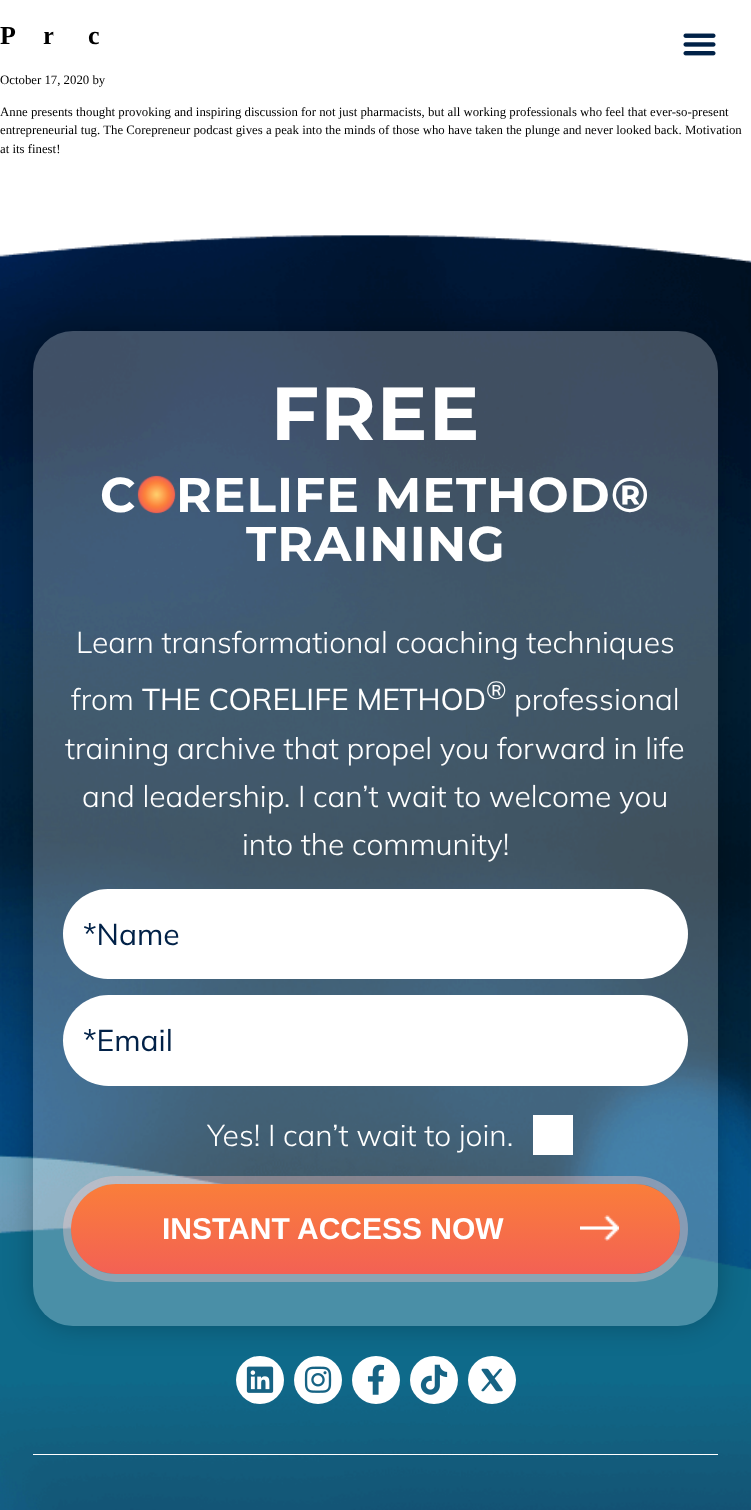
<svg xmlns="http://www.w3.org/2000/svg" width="751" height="1510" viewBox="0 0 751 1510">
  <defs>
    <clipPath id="clip1"><path d="M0 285H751V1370H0ZM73 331H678C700 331 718 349 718 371V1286C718 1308 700 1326 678 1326H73C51 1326 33 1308 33 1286V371C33 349 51 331 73 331Z" clip-rule="evenodd"/></clipPath>
    <linearGradient id="g1" gradientUnits="userSpaceOnUse" x1="376" y1="1184" x2="376" y2="1274"><stop offset="0" stop-color="rgb(250,126,58)"/><stop offset="1" stop-color="rgb(243,97,84)"/></linearGradient>
  </defs>
  <rect width="100%" height="100%" fill="rgb(255,255,255)"/>
  <g font-family="Liberation Serif" font-size="26" font-weight="bold" fill="rgb(0,0,0)">
    <text x="0" y="44">P</text>
    <text x="43" y="44">r</text>
    <text x="88" y="44">c</text>
  </g>
  <g font-family="Liberation Serif" font-size="12.8" fill="rgb(0,0,0)">
    <text x="0" y="84">October 17, 2020 by</text>
    <text>
      <tspan x="0" y="116">Anne presents thought provoking and inspiring discussion for not just pharmacists, but all working professionals who feel that ever-so-present</tspan>
      <tspan x="0" y="134">entrepreneurial tug. The Corepreneur podcast gives a peak into the minds of those who have taken the plunge and never looked back. Motivation</tspan>
      <tspan x="0" y="153">at its finest!</tspan>
    </text>
  </g>
  <image x="25" y="27" width="126" height="18" href="pic1.png"/>
  <image x="683" y="33" width="33" height="23" href="pic2.png"/>
  <image x="0" y="235" width="751" height="1275" href="pic3.png"/>
  <g clip-path="url(#clip1)">
    <rect x="33" y="330" width="685" height="995" rx="40" fill="rgba(0,0,0,0.25)" filter="blur(14.5px)"/>
  </g>
  <rect x="33" y="331" width="685" height="995" rx="40" fill="rgba(255,255,255,0.25)"/>
  <text x="271" y="440" font-family="Montserrat" font-size="75" font-weight="bold" letter-spacing="1.5" fill="rgb(255,255,255)">FREE</text>
  <text x="100" y="512" font-family="Montserrat" font-size="48.75" font-weight="bold" letter-spacing="1" fill="rgb(255,255,255)">C</text>
  <image x="137" y="475" width="39" height="39" href="pic4.png"/>
  <g font-family="Montserrat" font-size="48.75" font-weight="bold" letter-spacing="1" fill="rgb(255,255,255)">
    <text x="176" y="512">RELIFE METHOD®</text>
    <text x="246" y="561">TRAINING</text>
  </g>
  <g font-family="Mulish" font-size="30" font-weight="300" fill="rgb(255,255,255)">
    <text x="76" y="653">Learn transformational coaching techniques</text>
    <text x="71" y="710">from</text>
  </g>
  <text x="142" y="710" font-family="Mulish" font-size="30" fill="rgb(255,255,255)">THE CORELIFE METHOD</text>
  <text x="486" y="699" font-family="Mulish" font-size="25" fill="rgb(255,255,255)">®</text>
  <g font-family="Mulish" font-size="30" font-weight="300" fill="rgb(255,255,255)">
    <text x="514" y="710">professional</text>
    <text x="65" y="759">training archive that propel you forward in life</text>
    <text x="82" y="807">and leadership. I can’t wait to welcome you</text>
    <text x="242" y="855">into the community!</text>
  </g>
  <rect x="63" y="889" width="625" height="90" rx="45" fill="rgb(255,255,255)"/>
  <text x="83" y="945" font-family="Mulish" font-size="30" fill="rgb(1,33,71)">*Name</text>
  <rect x="63" y="995" width="625" height="91" rx="45.5" fill="rgb(255,255,255)"/>
  <text x="83" y="1051" font-family="Mulish" font-size="30" fill="rgb(1,33,71)">*Email</text>
  <text x="207" y="1146" font-family="Mulish" font-size="30" font-weight="300" fill="rgb(255,255,255)">Yes! I can’t wait to join.</text>
  <rect x="533" y="1115" width="40" height="40" fill="rgb(255,255,255)"/>
  <rect x="71" y="1184" width="609" height="90" rx="45" fill="url(#g1)"/>
  <image x="580" y="1215" width="39" height="26" href="pic5.png"/>
  <rect x="67" y="1180" width="617" height="98" rx="49" fill="none" stroke="rgba(255,204,204,0.36)" stroke-width="8"/>
  <text x="162" y="1239" font-family="Liberation Sans" font-size="30" font-weight="bold" fill="rgb(255,255,255)">INSTANT ACCESS NOW</text>
  <circle cx="260" cy="1380" r="24" fill="rgb(255,255,255)"/>
  <image x="246" y="1366" width="28" height="27" href="pic6.png"/>
  <circle cx="318" cy="1380" r="24" fill="rgb(255,255,255)"/>
  <image x="304" y="1366" width="28" height="27" href="pic7.png"/>
  <circle cx="376" cy="1380" r="24" fill="rgb(255,255,255)"/>
  <image x="367" y="1364" width="18" height="31" href="pic8.png"/>
  <circle cx="434" cy="1380" r="24" fill="rgb(255,255,255)"/>
  <image x="420" y="1364" width="28" height="31" href="pic9.png"/>
  <circle cx="492" cy="1380" r="24" fill="rgb(255,255,255)"/>
  <image x="481" y="1368" width="22" height="24" href="pic10.png"/>
  <rect x="33" y="1454" width="685" height="1" fill="rgb(255,255,255)"/>
</svg>
